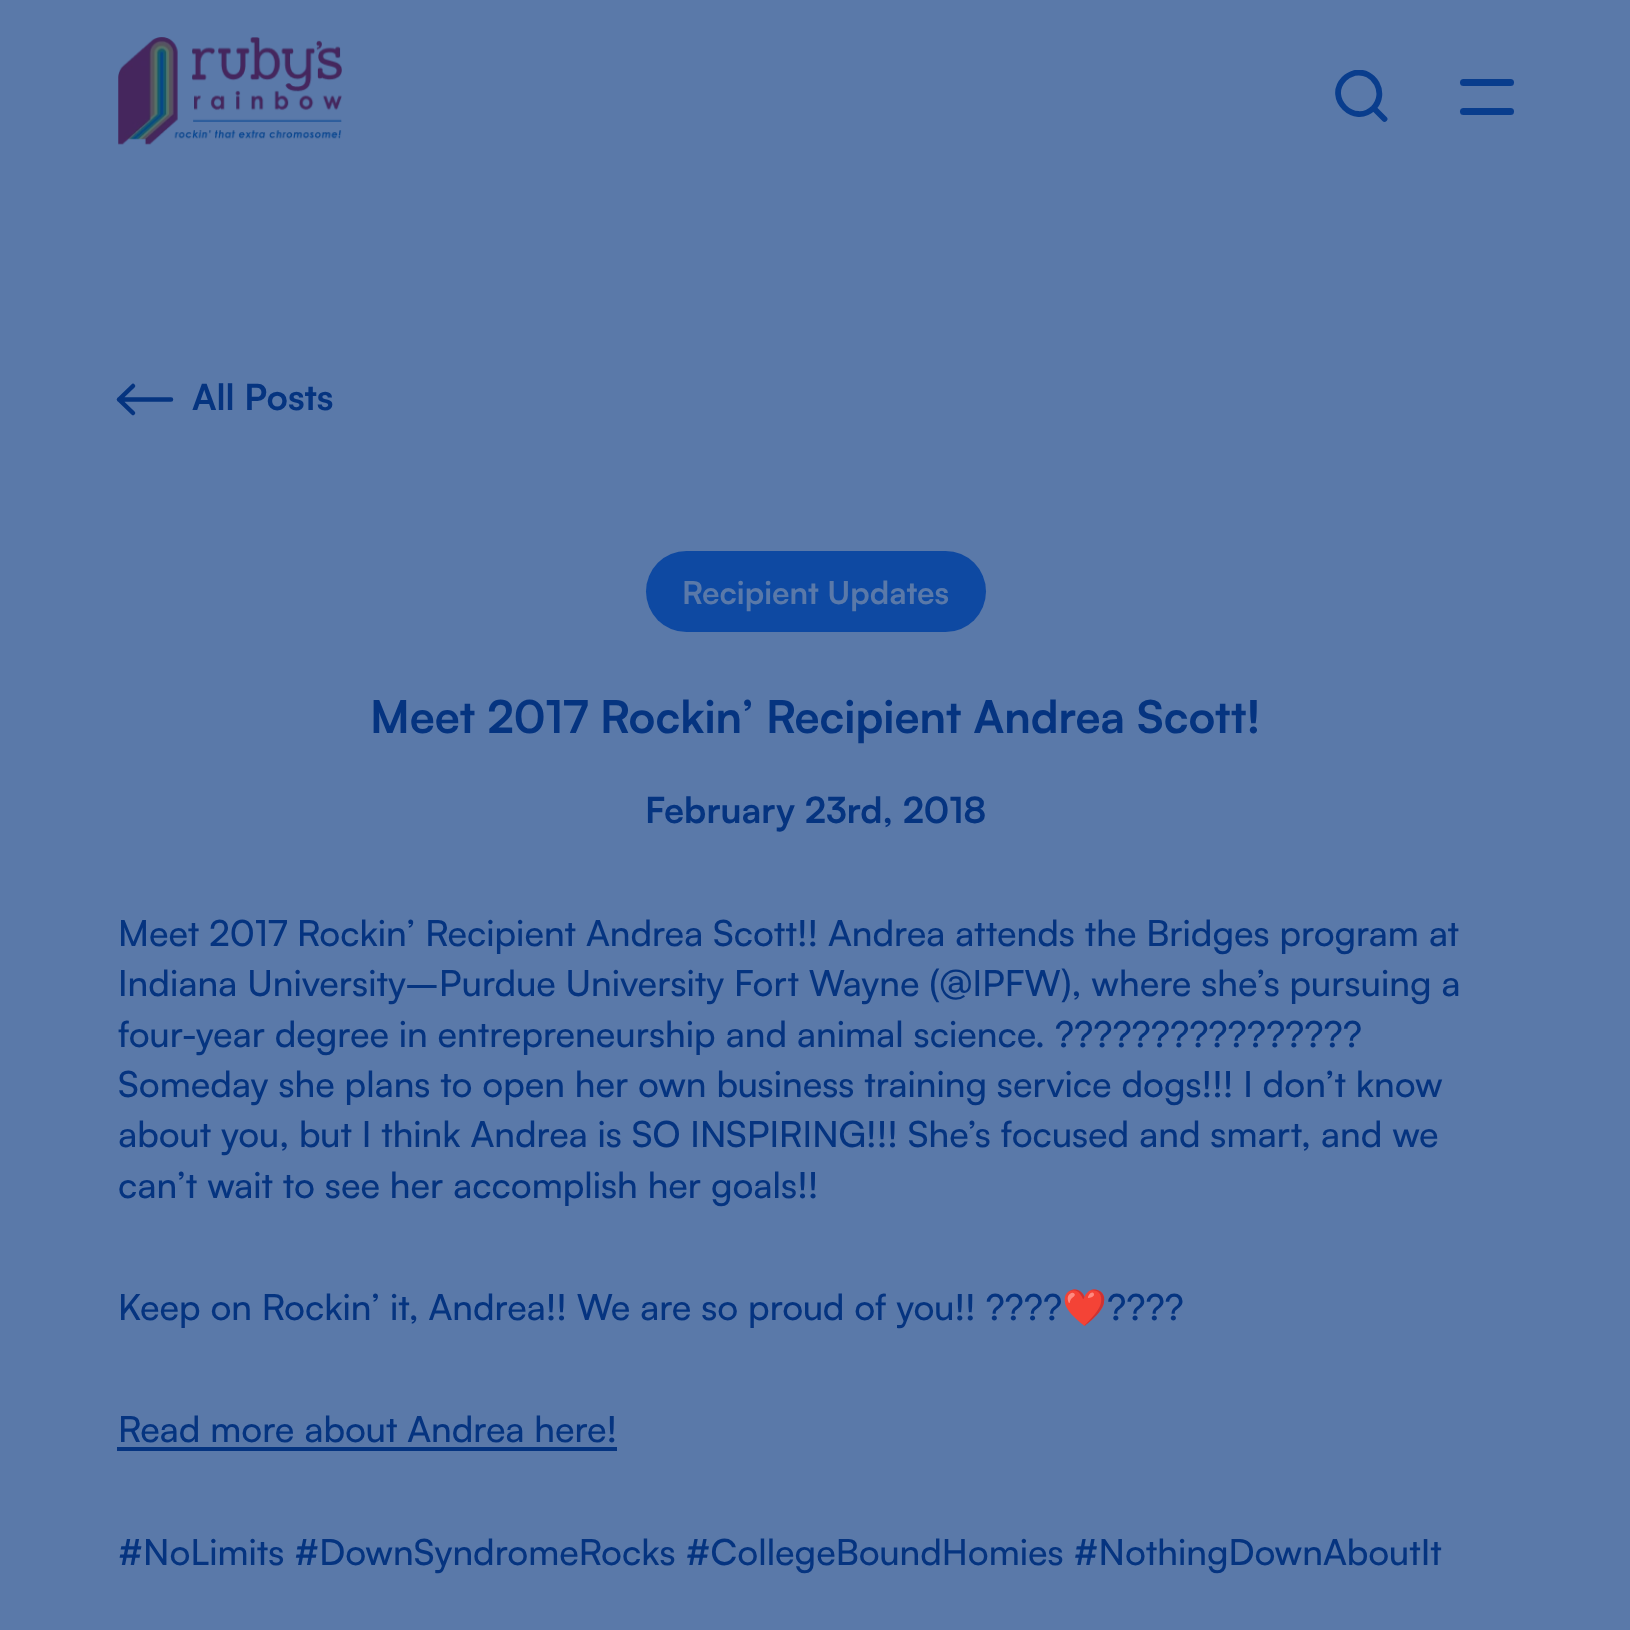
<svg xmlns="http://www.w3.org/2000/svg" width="1630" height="1630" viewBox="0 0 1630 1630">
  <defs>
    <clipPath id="clip1"><rect x="1334" y="70" width="54" height="54"/></clipPath>
  </defs>
  <rect width="100%" height="100%" fill="rgb(90,121,169)"/>
  <image x="118" y="37" width="224" height="108" href="pic1.png"/>
  <g clip-path="url(#clip1)">
    <path d="M1384.5 119L1373.5 108M1373.5 108C1387.5 93.5 1374.5 69 1354.5 73C1351 74 1347 76 1344 79C1325.5 98.5 1354.5 126.5 1373.5 108Z" fill="none" stroke="rgb(9,61,141)" stroke-width="5.8" stroke-linecap="round" stroke-linejoin="round"/>
  </g>
  <rect x="1460" y="79" width="54" height="7" rx="3.5" fill="rgb(9,61,141)"/>
  <rect x="1460" y="108" width="54" height="7" rx="3.5" fill="rgb(9,61,141)"/>
  <path d="M119 399.5H171M119 399.5L133 386M119 399.5L133 413" fill="none" stroke="rgb(5,52,128)" stroke-width="4.5" stroke-linecap="round" stroke-linejoin="round"/>
  <text x="192" y="410" font-family="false" font-size="36" font-weight="bold" fill="rgb(5,52,128)">All Posts</text>
  <rect x="646" y="551" width="340" height="81" rx="40.5" fill="rgb(14,73,162)"/>
  <text x="682" y="604" font-family="false" font-size="31.5" font-weight="bold" fill="rgb(90,121,169)">Recipient Updates</text>
  <text x="370" y="733" font-family="false" font-size="45" font-weight="bold" fill="rgb(5,52,128)">Meet 2017 Rockin’ Recipient Andrea Scott!</text>
  <text x="645" y="823" font-family="false" font-size="36" font-weight="bold" fill="rgb(5,52,128)">February 23rd, 2018</text>
  <g font-family="Satoshi" font-size="36" font-weight="500" fill="rgb(5,52,128)">
    <text>
      <tspan x="118" y="946">Meet 2017 Rockin’ Recipient Andrea Scott!! Andrea attends the Bridges program at</tspan>
      <tspan x="118" y="996">Indiana University–Purdue University Fort Wayne (@IPFW), where she’s pursuing a</tspan>
      <tspan x="118" y="1047">four-year degree in entrepreneurship and animal science. ????????????????</tspan>
      <tspan x="118" y="1097">Someday she plans to open her own business training service dogs!!! I don’t know</tspan>
      <tspan x="118" y="1147">about you, but I think Andrea is SO INSPIRING!!! She’s focused and smart, and we</tspan>
      <tspan x="118" y="1198">can’t wait to see her accomplish her goals!!</tspan>
    </text>
    <text x="118" y="1320">Keep on Rockin’ it, Andrea!! We are so proud of you!! ????</text>
  </g>
  <text x="1062" y="1320" font-family="Noto Color Emoji" font-size="36" fill="rgb(5,52,128)">❤️</text>
  <g font-family="Satoshi" font-size="36" font-weight="500" fill="rgb(5,52,128)">
    <text x="1107" y="1320">????</text>
    <text x="118" y="1442">Read more about Andrea here!</text>
  </g>
  <rect x="117" y="1447" width="500" height="4" fill="rgb(5,52,128)"/>
  <text x="118" y="1565" font-family="Satoshi" font-size="36" font-weight="500" fill="rgb(5,52,128)">#NoLimits #DownSyndromeRocks #CollegeBoundHomies #NothingDownAboutIt</text>
</svg>
